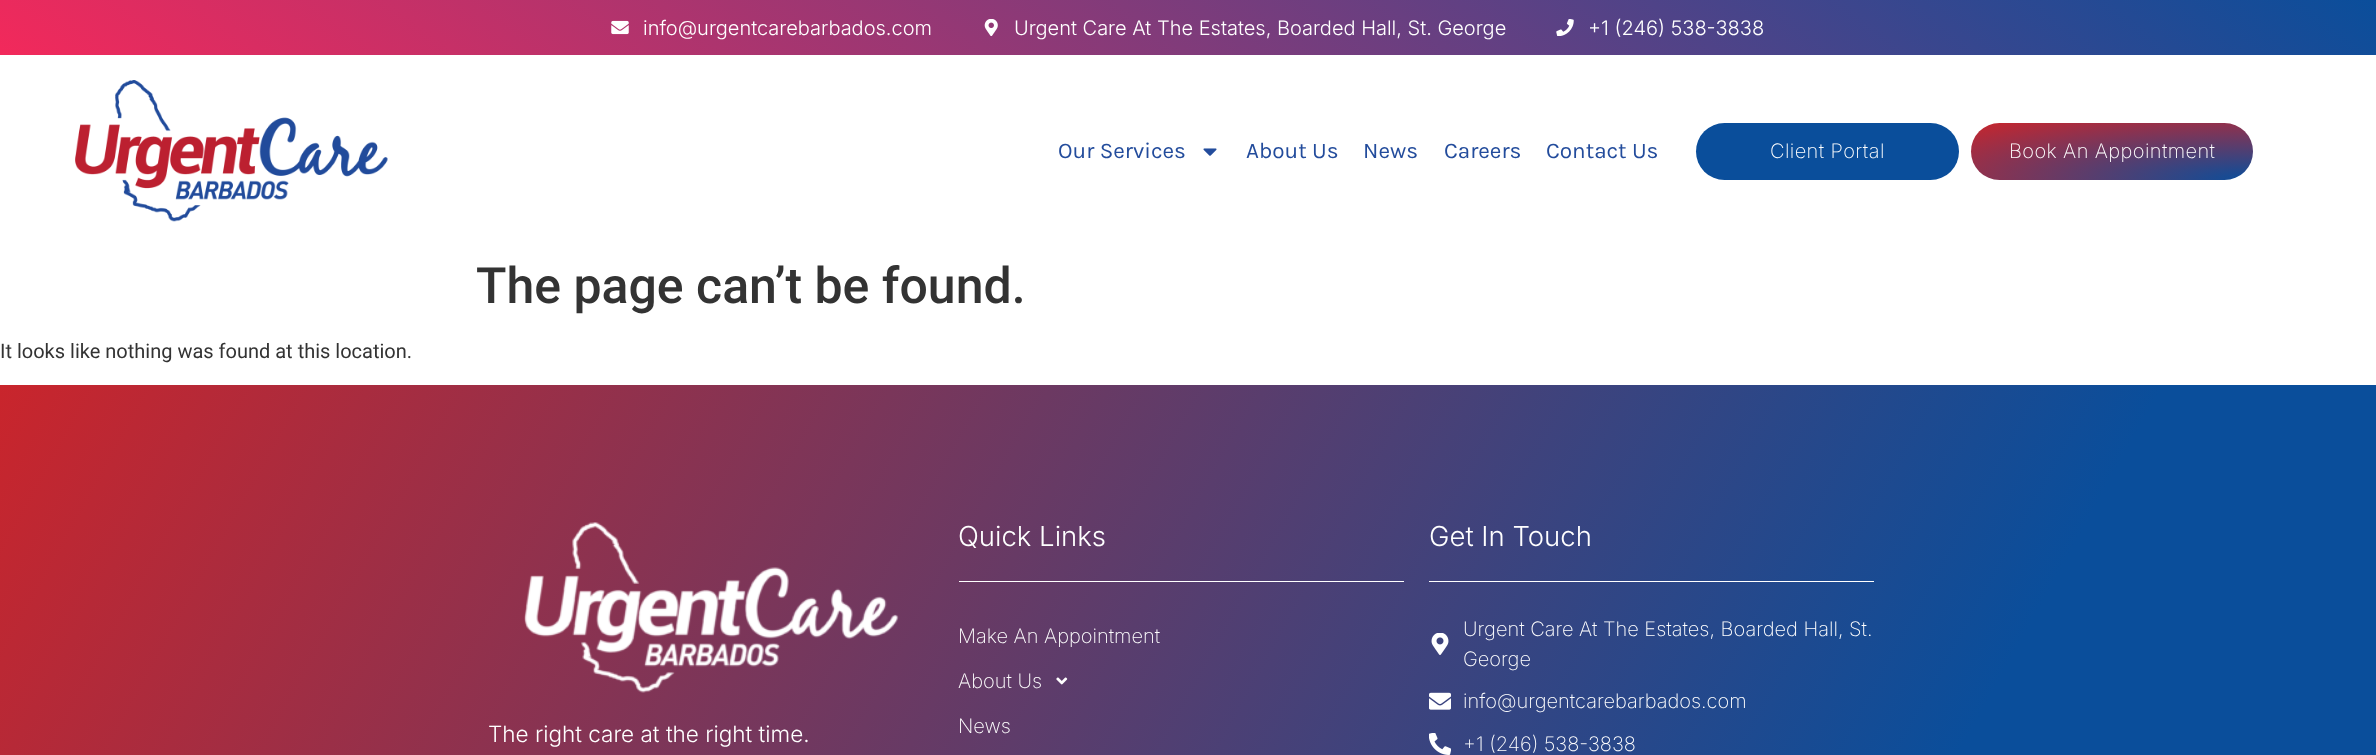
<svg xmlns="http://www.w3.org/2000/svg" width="2376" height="755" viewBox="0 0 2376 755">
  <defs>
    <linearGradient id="g1" gradientUnits="userSpaceOnUse" x1="1632" y1="-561" x2="745" y2="616"><stop offset="0" stop-color="rgb(10,78,155)"/><stop offset="1" stop-color="rgb(242,41,91)"/></linearGradient>
    <radialGradient id="g2" gradientUnits="userSpaceOnUse" cx="0" cy="0" r="1" gradientTransform="matrix(398 0 0 81 2253 180)"><stop offset="0" stop-color="rgb(10,78,155)"/><stop offset="1" stop-color="rgb(201,37,44)"/></radialGradient>
    <linearGradient id="g3" gradientUnits="userSpaceOnUse" x1="2222" y1="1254" x2="154" y2="107"><stop offset="0.2" stop-color="rgb(10,78,155)"/><stop offset="1" stop-color="rgb(201,37,44)"/></linearGradient>
  </defs>
  <rect width="100%" height="100%" fill="rgb(255,255,255)"/>
  <rect x="0" y="0" width="2376" height="55" fill="url(#g1)"/>
  <image x="611" y="20" width="18" height="15" href="pic1.png"/>
  <text x="643" y="35" font-family="Inter" font-size="20" font-weight="300" fill="rgb(255,255,255)">info@urgentcarebarbados.com</text>
  <image x="984" y="19" width="14" height="17" href="pic2.png"/>
  <text x="1014" y="35" font-family="Inter" font-size="20" font-weight="300" fill="rgb(255,255,255)">Urgent Care At The Estates, Boarded Hall, St. George</text>
  <image x="1556" y="19" width="18" height="17" href="pic3.png"/>
  <text x="1588" y="35" font-family="Inter" font-size="20" font-weight="300" fill="rgb(255,255,255)">+1 (246) 538-3838</text>
  <image x="75" y="80" width="313" height="142" href="pic4.png"/>
  <text x="1058" y="158" font-family="Karla" font-size="22.5" fill="rgb(35,76,156)">Our Services</text>
  <image x="1203" y="148" width="14" height="8" href="pic5.png"/>
  <g font-family="Karla" font-size="22.5" fill="rgb(35,76,156)">
    <text x="1246" y="158">About Us</text>
    <text x="1363" y="158">News</text>
    <text x="1444" y="158">Careers</text>
    <text x="1546" y="158">Contact Us</text>
  </g>
  <rect x="1696" y="123" width="263" height="57" rx="28.5" fill="rgb(10,78,155)"/>
  <text x="1770" y="158" font-family="Inter" font-size="20" font-weight="200" letter-spacing="0.4" fill="rgb(255,255,255)">Client Portal</text>
  <rect x="1971" y="123" width="282" height="57" rx="28.5" fill="url(#g2)"/>
  <text x="2009" y="158" font-family="Inter" font-size="20" font-weight="200" letter-spacing="0.4" fill="rgb(255,255,255)">Book An Appointment</text>
  <text x="476" y="303" font-family="Roboto" font-size="50" font-weight="500" fill="rgb(51,51,51)">The page can’t be found.</text>
  <text x="0" y="358" font-family="Roboto" font-size="20" fill="rgb(51,51,51)">It looks like nothing was found at this location.</text>
  <rect x="0" y="385" width="2376" height="370" fill="url(#g3)"/>
  <image x="524" y="522" width="375" height="171" href="pic6.png"/>
  <text x="488" y="742" font-family="Inter" font-size="22.5" font-weight="300" fill="rgb(255,255,255)">The right care at the right time.</text>
  <text x="958" y="546" font-family="Inter" font-size="27.5" font-weight="300" fill="rgb(255,255,255)">Quick Links</text>
  <rect x="959" y="581" width="445" height="1" fill="rgb(255,255,255)"/>
  <g font-family="Inter" font-size="20" font-weight="200" fill="rgb(255,255,255)">
    <text x="958" y="643">Make An Appointment</text>
    <text x="958" y="688">About Us</text>
  </g>
  <image x="1056" y="677" width="12" height="8" href="pic7.png"/>
  <text x="958" y="733" font-family="Inter" font-size="20" font-weight="200" fill="rgb(255,255,255)">News</text>
  <text x="1429" y="546" font-family="Inter" font-size="27.5" font-weight="300" fill="rgb(255,255,255)">Get In Touch</text>
  <rect x="1429" y="581" width="445" height="1" fill="rgb(255,255,255)"/>
  <image x="1431" y="633" width="18" height="22" href="pic8.png"/>
  <g font-family="Inter" font-size="20" font-weight="200" fill="rgb(255,255,255)">
    <text>
      <tspan x="1463" y="636">Urgent Care At The Estates, Boarded Hall, St.</tspan>
      <tspan x="1463" y="666">George</tspan>
    </text>
  </g>
  <image x="1429" y="692" width="22" height="18" href="pic9.png"/>
  <text x="1463" y="708" font-family="Inter" font-size="20" font-weight="200" fill="rgb(255,255,255)">info@urgentcarebarbados.com</text>
  <image x="1429" y="733" width="22" height="22" href="pic10.png"/>
  <text x="1463" y="751" font-family="Inter" font-size="20" font-weight="200" fill="rgb(255,255,255)">+1 (246) 538-3838</text>
</svg>
